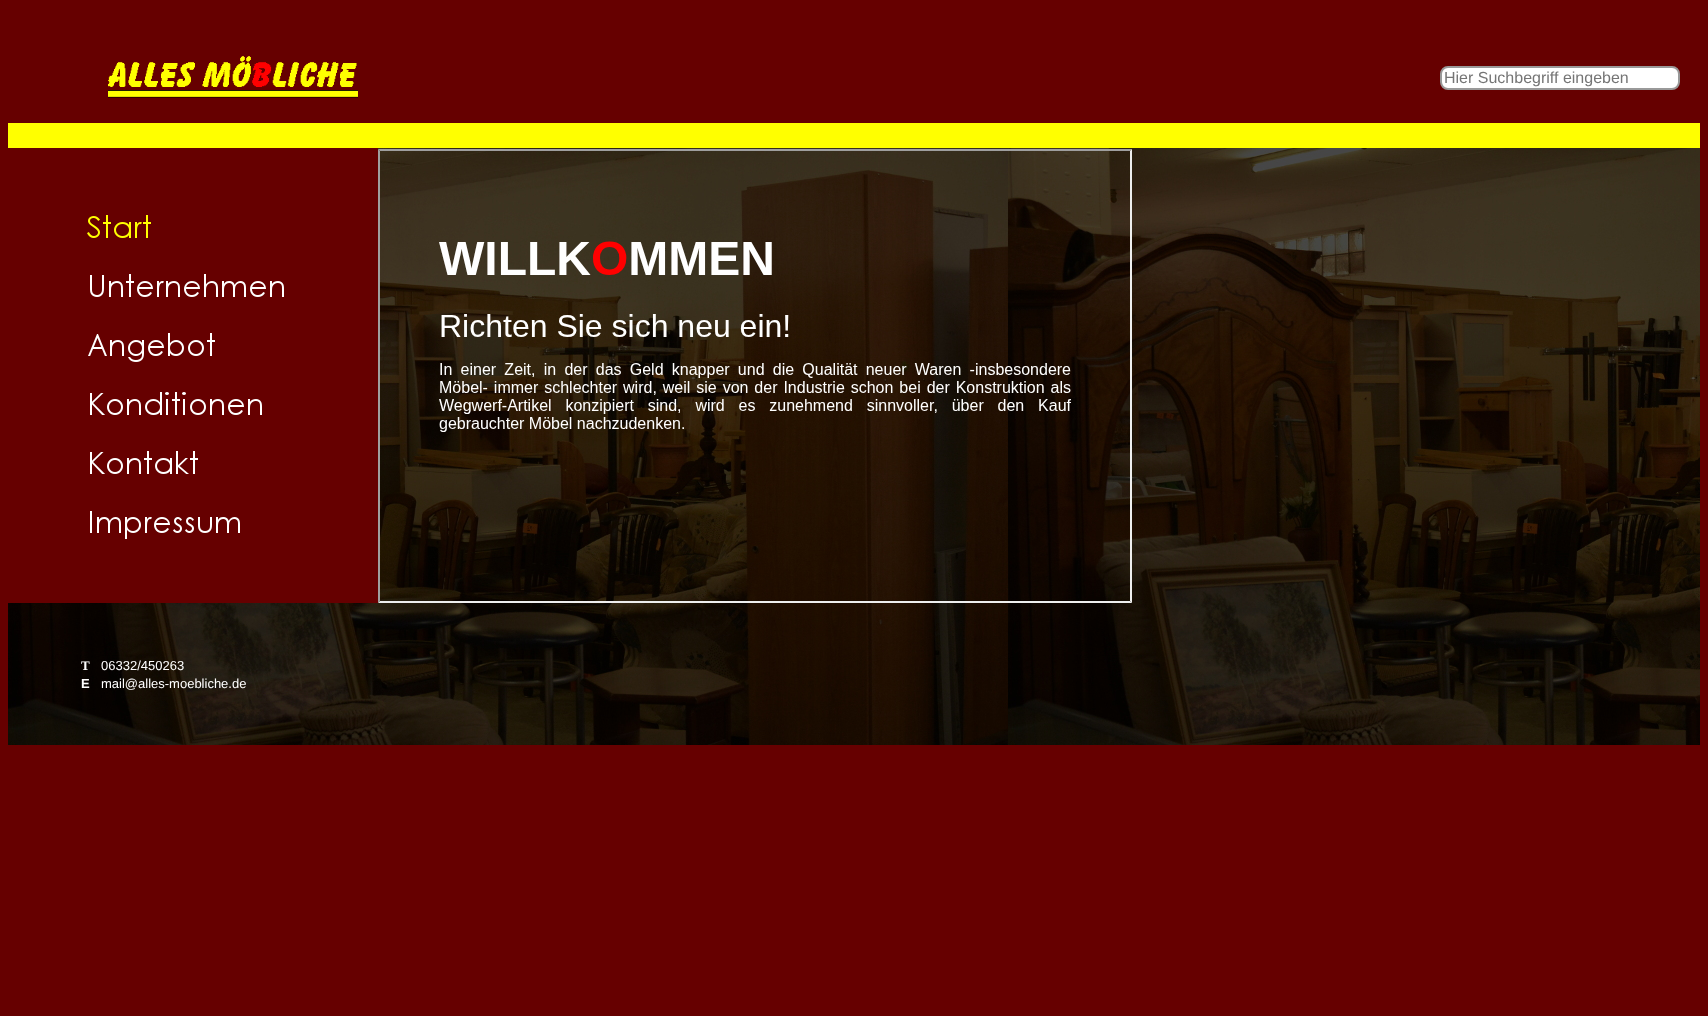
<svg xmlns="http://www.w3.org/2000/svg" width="1708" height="1016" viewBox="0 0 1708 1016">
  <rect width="100%" height="100%" fill="rgb(102,0,0)"/>
  <rect x="8" y="123" width="1692" height="25" fill="rgb(255,255,0)"/>
  <image x="108" y="56" width="250" height="42" href="pic1.png"/>
  <rect x="1441" y="67" width="238" height="22" rx="7" fill="rgb(255,255,255)" stroke="rgb(153,153,153)" stroke-width="2"/>
  <text x="1444" y="83" font-family="Liberation Sans" font-size="16" fill="rgb(117,117,117)">Hier Suchbegriff eingeben</text>
  <image x="8" y="148" width="1692" height="597" href="pic2.png"/>
  <rect x="8" y="148" width="370" height="455" fill="rgb(102,0,0)"/>
  <path d="M378 149H1132L1130 151H380Z" fill="rgb(159,159,159)"/>
  <path d="M1132 149V603L1130 601V151Z" fill="rgb(238,238,238)"/>
  <path d="M1132 603H378L380 601H1130Z" fill="rgb(238,238,238)"/>
  <path d="M378 603V149L380 151V601Z" fill="rgb(159,159,159)"/>
  <image x="439" y="241" width="632" height="191" href="pic3.png"/>
  <image x="87" y="215" width="64" height="23" href="pic4.png"/>
  <image x="90" y="274" width="194" height="23" href="pic5.png"/>
  <image x="88" y="333" width="127" height="29" href="pic6.png"/>
  <image x="90" y="392" width="172" height="23" href="pic7.png"/>
  <image x="90" y="451" width="108" height="23" href="pic8.png"/>
  <image x="90" y="511" width="150" height="28" href="pic9.png"/>
  <text x="81" y="670" font-family="Liberation Serif" font-size="13" font-weight="bold" fill="rgb(255,255,255)">T</text>
  <text x="101" y="670" font-family="Liberation Sans" font-size="13" fill="rgb(255,255,255)">06332/450263</text>
  <text x="81" y="688" font-family="Liberation Sans" font-size="13" font-weight="bold" fill="rgb(255,255,255)">E</text>
  <text x="101" y="688" font-family="Liberation Sans" font-size="13" fill="rgb(255,255,255)">mail@alles-moebliche.de</text>
</svg>
